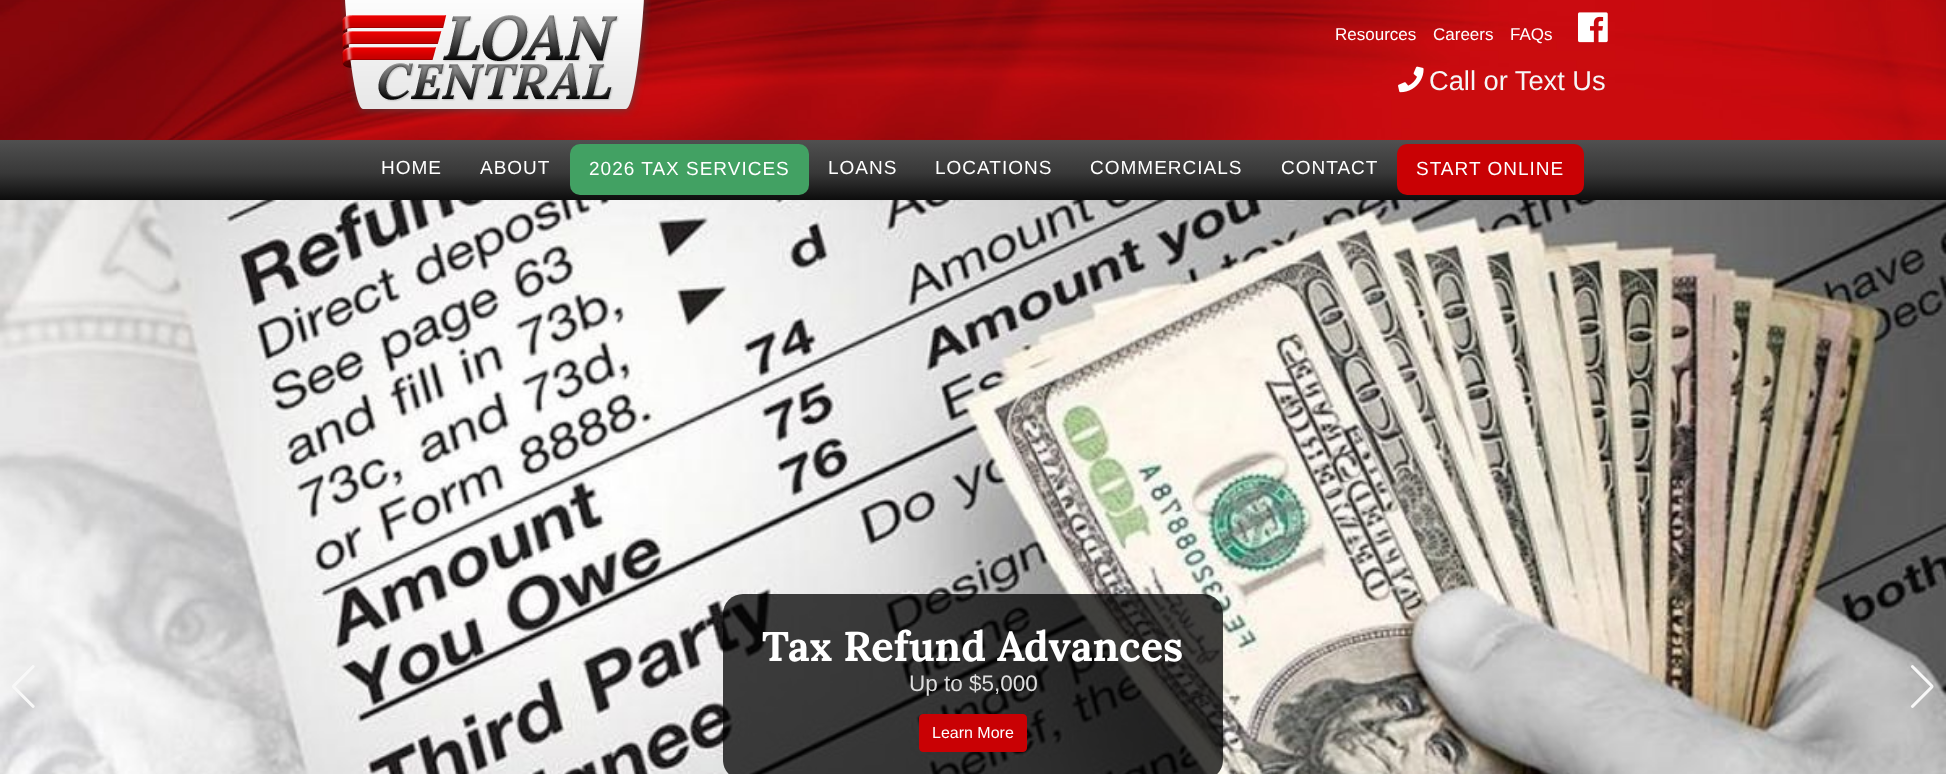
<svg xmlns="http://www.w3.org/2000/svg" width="1946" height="774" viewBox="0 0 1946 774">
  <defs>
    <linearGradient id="g1" gradientUnits="userSpaceOnUse" x1="973" y1="200" x2="973" y2="140"><stop offset="0" stop-color="rgb(12,12,12)"/><stop offset="0.45" stop-color="rgb(56,56,56)"/><stop offset="1" stop-color="rgb(80,80,80)"/></linearGradient>
  </defs>
  <rect width="100%" height="100%" fill="rgb(255,255,255)"/>
  <image x="0" y="0" width="1946" height="140" href="pic1.png"/>
  <image x="340" y="0" width="311" height="117" href="pic2.png"/>
  <g font-family="Liberation Sans" font-size="17" fill="rgb(255,255,255)">
    <text x="1335" y="40">Resources</text>
    <text x="1433" y="40">Careers</text>
    <text x="1510" y="40">FAQs</text>
  </g>
  <image x="1578" y="12" width="30" height="31" href="pic3.png"/>
  <image x="1398" y="66" width="26" height="27" href="pic4.png"/>
  <text x="1429" y="90" font-family="Liberation Sans" font-size="27.25" fill="rgb(246,246,246)">Call or Text Us</text>
  <rect x="0" y="140" width="1946" height="60" fill="url(#g1)"/>
  <g font-family="Liberation Sans" font-size="19" letter-spacing="1" fill="rgb(255,255,255)">
    <text x="381" y="174">HOME</text>
    <text x="480" y="174">ABOUT</text>
  </g>
  <rect x="570" y="144" width="239" height="51" rx="10" fill="rgb(66,161,99)"/>
  <g font-family="Liberation Sans" font-size="19" letter-spacing="1" fill="rgb(255,255,255)">
    <text x="589" y="175">2026 TAX SERVICES</text>
    <text x="828" y="174">LOANS</text>
    <text x="935" y="174">LOCATIONS</text>
    <text x="1090" y="174">COMMERCIALS</text>
    <text x="1281" y="174">CONTACT</text>
  </g>
  <rect x="1397" y="144" width="187" height="51" rx="10" fill="rgb(201,1,4)"/>
  <text x="1416" y="175" font-family="Liberation Sans" font-size="19" letter-spacing="1" fill="rgb(255,255,255)">START ONLINE</text>
  <image x="0" y="200" width="1946" height="574" href="pic6.png"/>
  <image x="12" y="665" width="23" height="43" href="pic5.png"/>
  <rect x="723" y="594" width="500" height="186" rx="20" fill="rgba(0,0,0,0.75)"/>
  <text x="762" y="661" font-family="Lora" font-size="41.6" font-weight="bold" fill="rgb(255,255,255)">Tax Refund Advances</text>
  <text x="909" y="691" font-family="Liberation Sans" font-size="22.5" fill="rgb(221,221,221)">Up to $5,000</text>
  <rect x="919.5" y="714.5" width="107" height="37" rx="3.5" fill="rgb(201,1,4)" stroke="rgb(201,1,4)"/>
  <text x="932" y="738" font-family="Liberation Sans" font-size="16" fill="rgb(255,255,255)">Learn More</text>
  <image x="1910" y="665" width="24" height="43" href="pic7.png"/>
</svg>
